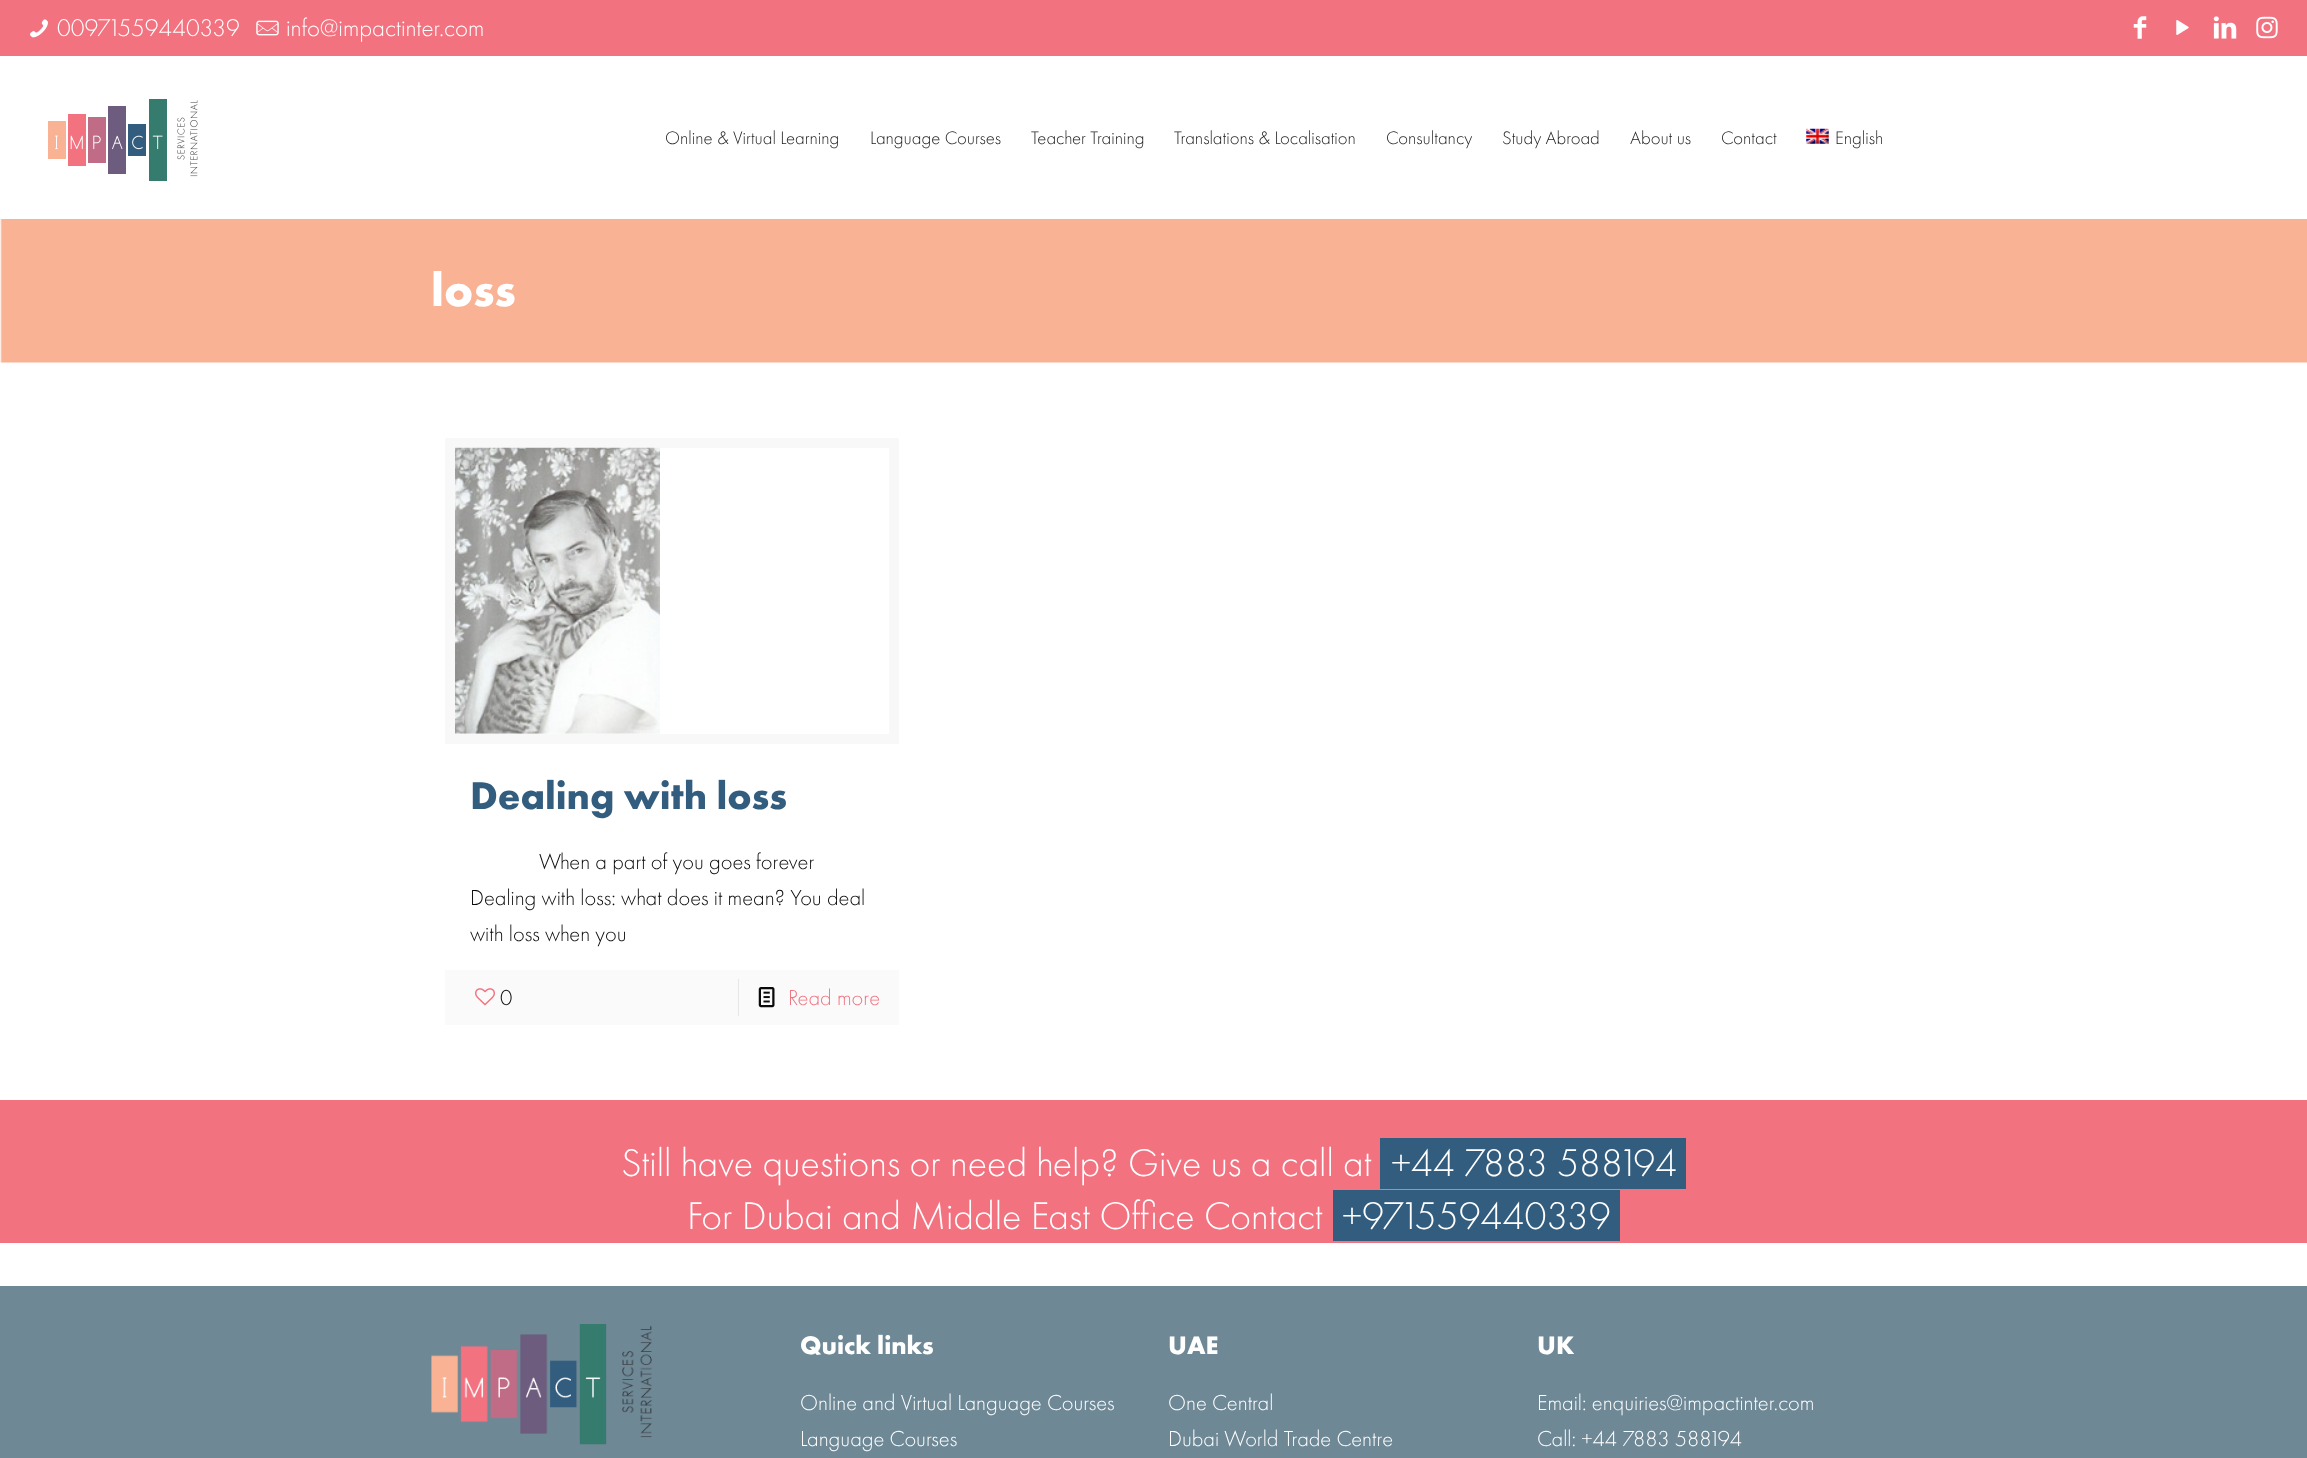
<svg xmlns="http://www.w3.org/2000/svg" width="2307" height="1458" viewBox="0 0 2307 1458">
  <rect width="100%" height="100%" fill="rgb(255,255,255)"/>
  <image x="0" y="219" width="2307" height="144" href="pic1.png"/>
  <rect x="0" y="0" width="2307" height="56" fill="rgb(242,114,128)"/>
  <image x="30" y="19" width="18" height="19" href="pic2.png"/>
  <text x="57" y="36" font-family="Futura PT" font-size="25" font-weight="300" fill="rgb(255,255,255)">00971559440339</text>
  <image x="256" y="20" width="23" height="16" href="pic3.png"/>
  <text x="286" y="36" font-family="Futura PT" font-size="25" font-weight="300" fill="rgb(255,255,255)">info@impactinter.com</text>
  <image x="2133" y="16" width="14" height="23" href="pic4.png"/>
  <image x="2176" y="20" width="13" height="15" href="pic5.png"/>
  <image x="2213" y="16" width="24" height="23" href="pic6.png"/>
  <image x="2256" y="16" width="22" height="23" href="pic7.png"/>
  <image x="48" y="99" width="150" height="82" href="pic8.png"/>
  <g font-family="Futura PT" font-size="18.75" font-weight="300" fill="rgb(35,35,35)">
    <text x="665" y="144">Online &amp; Virtual Learning</text>
    <text x="870" y="144">Language Courses</text>
    <text x="1031" y="144">Teacher Training</text>
    <text x="1174" y="144">Translations &amp; Localisation</text>
    <text x="1386" y="144">Consultancy</text>
    <text x="1502" y="144">Study Abroad</text>
    <text x="1630" y="144">About us</text>
    <text x="1721" y="144">Contact</text>
  </g>
  <image x="1806" y="128" width="23" height="16" href="pic9.png"/>
  <text x="1835" y="144" font-family="Futura PT" font-size="18.75" font-weight="300" fill="rgb(35,35,35)">English</text>
  <text x="431" y="306" font-family="Futura PT" font-size="48" font-weight="bold" fill="rgb(255,255,255)">loss</text>
  <rect x="450" y="443" width="444" height="296" fill="none" stroke="rgb(248,248,248)" stroke-width="10"/>
  <image x="455" y="447" width="205" height="287" href="pic10.png"/>
  <text x="470" y="809" font-family="Futura PT" font-size="40" font-weight="bold" fill="rgb(51,93,126)">Dealing with loss</text>
  <g font-family="Futura PT" font-size="22.5" font-weight="300" fill="rgb(10,10,10)">
    <text x="539" y="869">When a part of you goes forever</text>
    <text>
      <tspan x="470" y="905">Dealing with loss: what does it mean? You deal</tspan>
      <tspan x="470" y="941">with loss when you</tspan>
    </text>
  </g>
  <rect x="445" y="970" width="454" height="55" fill="rgb(250,250,250)"/>
  <image x="475" y="988" width="20" height="18" href="pic11.png"/>
  <text x="500" y="1005" font-family="Futura PT" font-size="22.5" font-weight="300" fill="rgb(10,10,10)">0</text>
  <rect x="738" y="979" width="1" height="37" fill="rgb(230,230,230)"/>
  <image x="758" y="987" width="17" height="21" href="pic12.png"/>
  <text x="788" y="1005" font-family="Futura PT" font-size="22.5" font-weight="300" fill="rgb(242,114,128)">Read more</text>
  <rect x="0" y="1100" width="2307" height="143" fill="rgb(242,114,128)"/>
  <text x="621" y="1176" font-family="Futura PT" font-size="40" font-weight="300" fill="rgb(255,255,255)">Still have questions or need help? Give us a call at</text>
  <rect x="1380" y="1138" width="306" height="51" fill="rgb(51,93,126)"/>
  <g font-family="Futura PT" font-size="40" font-weight="300" fill="rgb(255,255,255)">
    <text x="1391" y="1176">+44 7883 588194</text>
    <text x="687" y="1229">For Dubai and Middle East Office Contact</text>
  </g>
  <rect x="1333" y="1190" width="287" height="51" fill="rgb(51,93,126)"/>
  <text x="1342" y="1229" font-family="Futura PT" font-size="40" font-weight="300" fill="rgb(255,255,255)">+971559440339</text>
  <rect x="0" y="1286" width="2307" height="172" fill="rgb(110,136,150)"/>
  <image x="431" y="1324" width="221" height="121" href="pic13.png"/>
  <text x="800" y="1354" font-family="Futura PT" font-size="26.25" font-weight="bold" fill="rgb(255,255,255)">Quick links</text>
  <g font-family="Futura PT" font-size="22.5" font-weight="300" fill="rgb(255,255,255)">
    <text>
      <tspan x="800" y="1410">Online and Virtual Language Courses</tspan>
      <tspan x="800" y="1446">Language Courses</tspan>
    </text>
  </g>
  <text x="1168" y="1354" font-family="Futura PT" font-size="26.25" font-weight="bold" fill="rgb(255,255,255)">UAE</text>
  <g font-family="Futura PT" font-size="22.5" font-weight="300" fill="rgb(255,255,255)">
    <text>
      <tspan x="1168" y="1410">One Central</tspan>
      <tspan x="1168" y="1446">Dubai World Trade Centre</tspan>
    </text>
  </g>
  <text x="1537" y="1354" font-family="Futura PT" font-size="26.25" font-weight="bold" fill="rgb(255,255,255)">UK</text>
  <g font-family="Futura PT" font-size="22.5" font-weight="300" fill="rgb(255,255,255)">
    <text>
      <tspan x="1537" y="1410">Email: enquiries@impactinter.com</tspan>
      <tspan x="1537" y="1446">Call: +44 7883 588194</tspan>
    </text>
  </g>
</svg>
